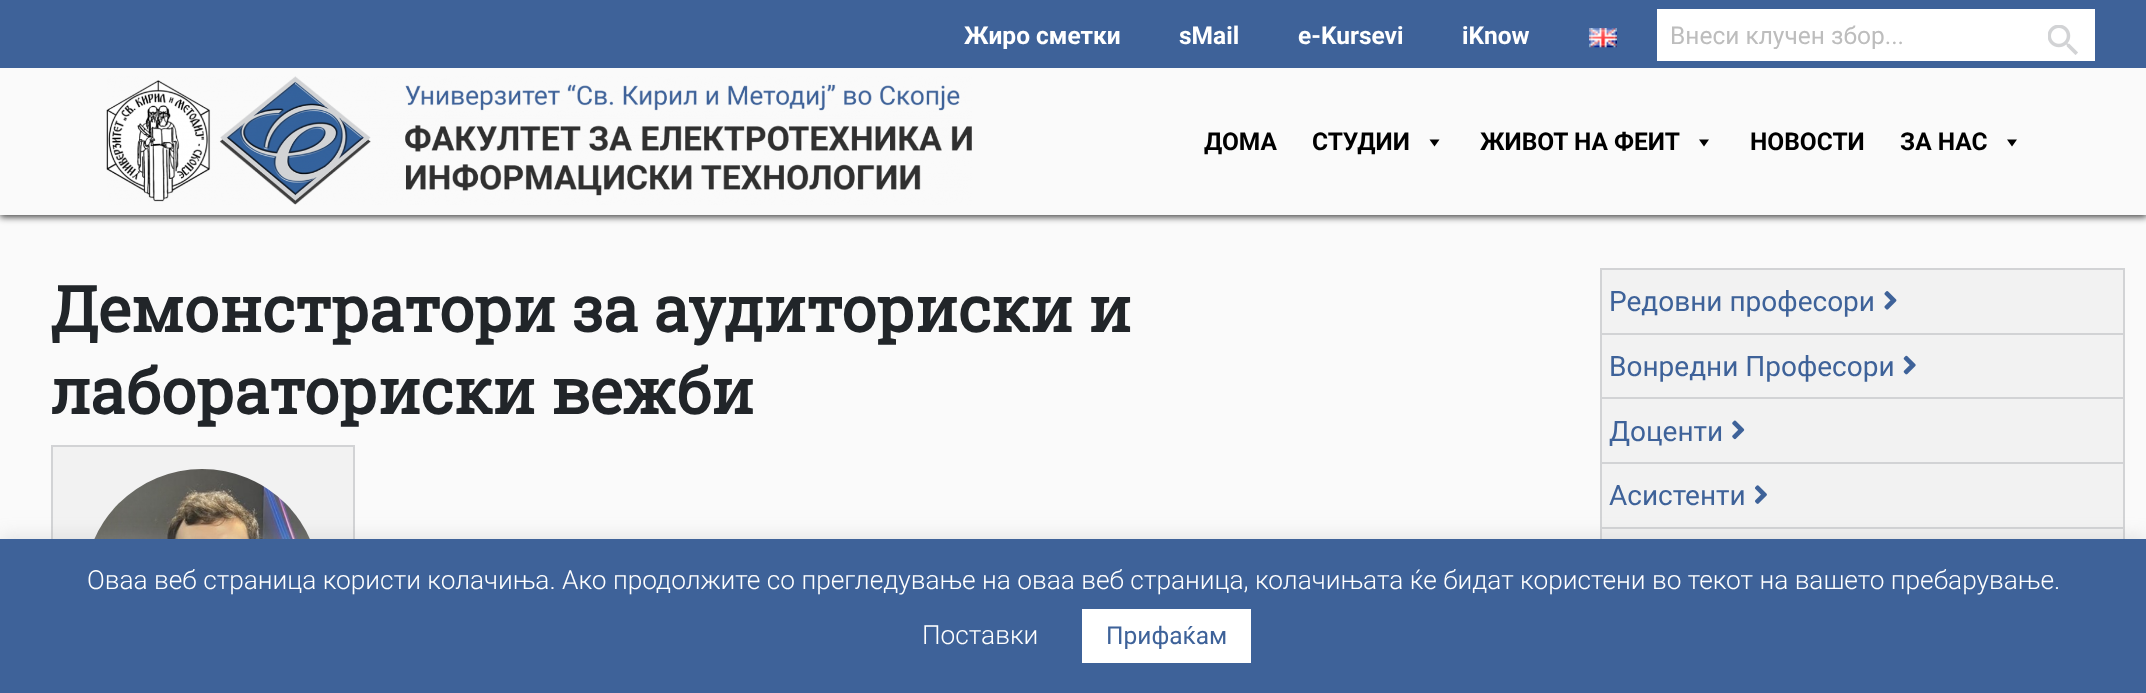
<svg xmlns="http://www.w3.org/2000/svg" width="2146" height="693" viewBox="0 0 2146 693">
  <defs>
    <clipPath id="clip1"><rect x="1670" y="21" width="388" height="28"/></clipPath>
  </defs>
  <rect width="100%" height="100%" fill="rgb(250,250,250)"/>
  <rect x="0" y="70" width="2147" height="147" fill="rgba(0,0,0,0.75)" filter="blur(3.5px)"/>
  <rect x="0" y="0" width="2146" height="68" fill="rgb(62,98,153)"/>
  <g font-family="Roboto" font-size="24.5" font-weight="bold" fill="rgb(255,255,255)">
    <text x="964" y="44">Жиро сметки</text>
    <text x="1179" y="44">sMail</text>
    <text x="1298" y="44">e-Kursevi</text>
    <text x="1462" y="44">iKnow</text>
  </g>
  <image x="1589" y="28" width="28" height="20" href="pic1.png"/>
  <rect x="1657" y="9" width="438" height="52" fill="rgb(255,255,255)"/>
  <g clip-path="url(#clip1)">
    <text x="1670" y="44" font-family="Roboto" font-size="24.5" fill="rgb(189,189,189)">Внеси клучен збор...</text>
  </g>
  <image x="2048" y="25" width="30" height="30" href="pic2.png"/>
  <rect x="0" y="68" width="2146" height="147" fill="rgb(250,250,250)"/>
  <image x="106" y="76" width="866" height="129" href="pic3.png"/>
  <g font-family="Roboto" font-size="24.5" font-weight="bold" fill="rgb(0,0,0)">
    <text x="1204" y="150">ДОМА</text>
    <text x="1312" y="150">СТУДИИ</text>
  </g>
  <path d="M1439.5 139.5L1434.5 146.5L1429.5 139.5Z" fill="rgb(0,0,0)"/>
  <text x="1480" y="150" font-family="Roboto" font-size="24.5" font-weight="bold" fill="rgb(0,0,0)">ЖИВОТ НА ФЕИТ</text>
  <path d="M1709 139.5L1704 146.5L1699 139.5Z" fill="rgb(0,0,0)"/>
  <g font-family="Roboto" font-size="24.5" font-weight="bold" fill="rgb(0,0,0)">
    <text x="1750" y="150">НОВОСТИ</text>
    <text x="1900" y="150">ЗА НАС</text>
  </g>
  <path d="M2017 139.5L2012 146.5L2007 139.5Z" fill="rgb(0,0,0)"/>
  <g font-family="Roboto Slab" font-size="63" font-weight="bold" fill="rgb(33,37,41)">
    <text>
      <tspan x="50" y="332">Демонстратори за аудиториски и</tspan>
      <tspan x="50" y="414">лабораториски вежби</tspan>
    </text>
  </g>
  <rect x="53" y="447" width="300" height="92" fill="rgb(242,242,242)"/>
  <rect x="52" y="446" width="302" height="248" fill="none" stroke="rgb(210,211,213)" stroke-width="2"/>
  <image x="94" y="469" width="216" height="70" href="pic4.png"/>
  <rect x="1602" y="270" width="521" height="269" fill="rgb(242,242,242)"/>
  <rect x="1601" y="269" width="523" height="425" fill="none" stroke="rgb(210,211,213)" stroke-width="2"/>
  <rect x="1601" y="333" width="522" height="2" fill="rgb(210,211,213)"/>
  <text x="1609" y="311" font-family="Roboto" font-size="28" fill="rgb(62,98,153)">Редовни професори</text>
  <image x="1884" y="291" width="13" height="19" href="pic5.png"/>
  <rect x="1601" y="397" width="522" height="2" fill="rgb(210,211,213)"/>
  <text x="1609" y="376" font-family="Roboto" font-size="28" fill="rgb(62,98,153)">Вонредни Професори</text>
  <image x="1903" y="355" width="13" height="20" href="pic6.png"/>
  <rect x="1601" y="462" width="522" height="2" fill="rgb(210,211,213)"/>
  <text x="1609" y="441" font-family="Roboto" font-size="28" fill="rgb(62,98,153)">Доценти</text>
  <image x="1732" y="420" width="13" height="20" href="pic7.png"/>
  <rect x="1601" y="527" width="522" height="2" fill="rgb(210,211,213)"/>
  <text x="1609" y="505" font-family="Roboto" font-size="28" fill="rgb(62,98,153)">Асистенти</text>
  <image x="1755" y="485" width="12" height="19" href="pic8.png"/>
  <rect x="0" y="537" width="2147" height="154" fill="rgba(172,171,171,0.3)" filter="blur(9px)"/>
  <rect x="0" y="539" width="2146" height="154" fill="rgb(62,98,153)"/>
  <g font-family="Roboto" font-size="26.25" font-weight="300" fill="rgb(255,255,255)">
    <text x="87" y="589">Оваа веб страница користи колачиња. Ако продолжите со прегледување на оваа веб страница, колачињата ќе бидат користени во текот на вашето пребарување.</text>
    <text x="922" y="644">Поставки</text>
  </g>
  <rect x="1082" y="609" width="169" height="54" fill="rgb(255,255,255)"/>
  <text x="1106" y="644" font-family="Roboto" font-size="24.5" fill="rgb(62,98,153)">Прифаќам</text>
</svg>
